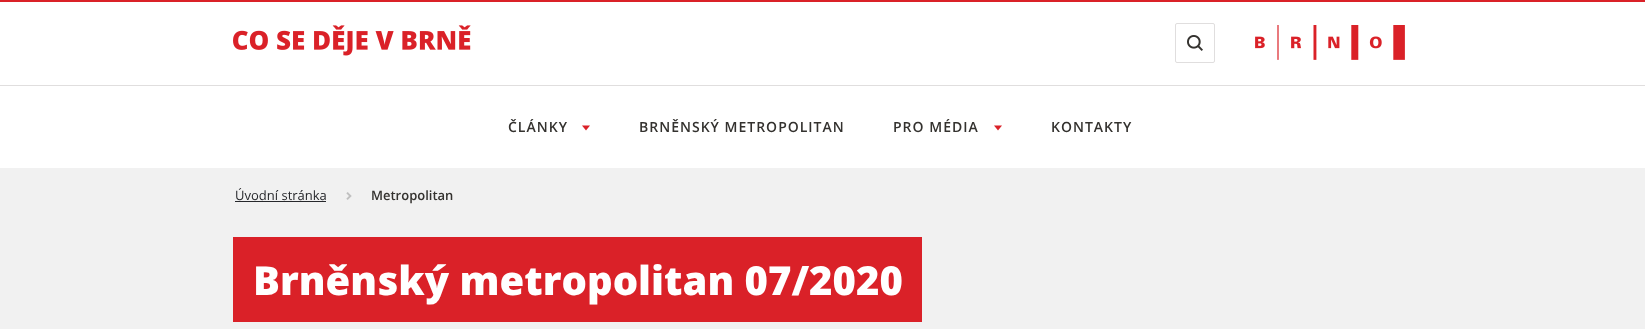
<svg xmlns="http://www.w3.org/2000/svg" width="1645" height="329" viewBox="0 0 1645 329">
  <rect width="100%" height="100%" fill="rgb(241,241,241)"/>
  <rect x="0" y="2" width="1645" height="166" fill="rgb(255,255,255)"/>
  <rect x="0" y="0" width="1645" height="2" fill="rgb(218,33,40)"/>
  <rect x="0" y="85" width="1645" height="1" fill="rgb(224,222,222)"/>
  <image x="233" y="25" width="238" height="31" href="pic1.png"/>
  <rect x="1175.5" y="23.5" width="39" height="39" rx="1.5" fill="none" stroke="rgb(224,222,222)"/>
  <image x="1187" y="35" width="16" height="16" href="pic2.png"/>
  <image x="1255" y="25" width="150" height="35" href="pic3.png"/>
  <text x="508" y="132" font-family="Open Sans" font-size="14" font-weight="600" letter-spacing="1" fill="rgb(52,50,47)">ČLÁNKY</text>
  <path d="M586 130.5L590 125.5H582Z" fill="rgb(218,33,40)"/>
  <g font-family="Open Sans" font-size="14" font-weight="600" letter-spacing="1" fill="rgb(52,50,47)">
    <text x="639" y="132">BRNĚNSKÝ METROPOLITAN</text>
    <text x="893" y="132">PRO MÉDIA</text>
  </g>
  <path d="M998 130.5L1002 125.5H994Z" fill="rgb(218,33,40)"/>
  <text x="1051" y="132" font-family="Open Sans" font-size="14" font-weight="600" letter-spacing="1" fill="rgb(52,50,47)">KONTAKTY</text>
  <text x="235" y="200" font-family="Open Sans" font-size="13" fill="rgb(39,40,44)">Úvodní stránka</text>
  <rect x="235" y="201" width="91" height="1" fill="rgb(39,40,44)"/>
  <image x="346" y="192" width="6" height="8" href="pic4.png"/>
  <text x="371" y="200" font-family="Open Sans" font-size="13" font-weight="600" fill="rgb(52,50,47)">Metropolitan</text>
  <rect x="233" y="237" width="689" height="85" fill="rgb(218,33,40)"/>
  <text x="253" y="295" font-family="Open Sans" font-size="40" font-weight="800" fill="rgb(255,255,255)">Brněnský metropolitan 07/2020</text>
</svg>
